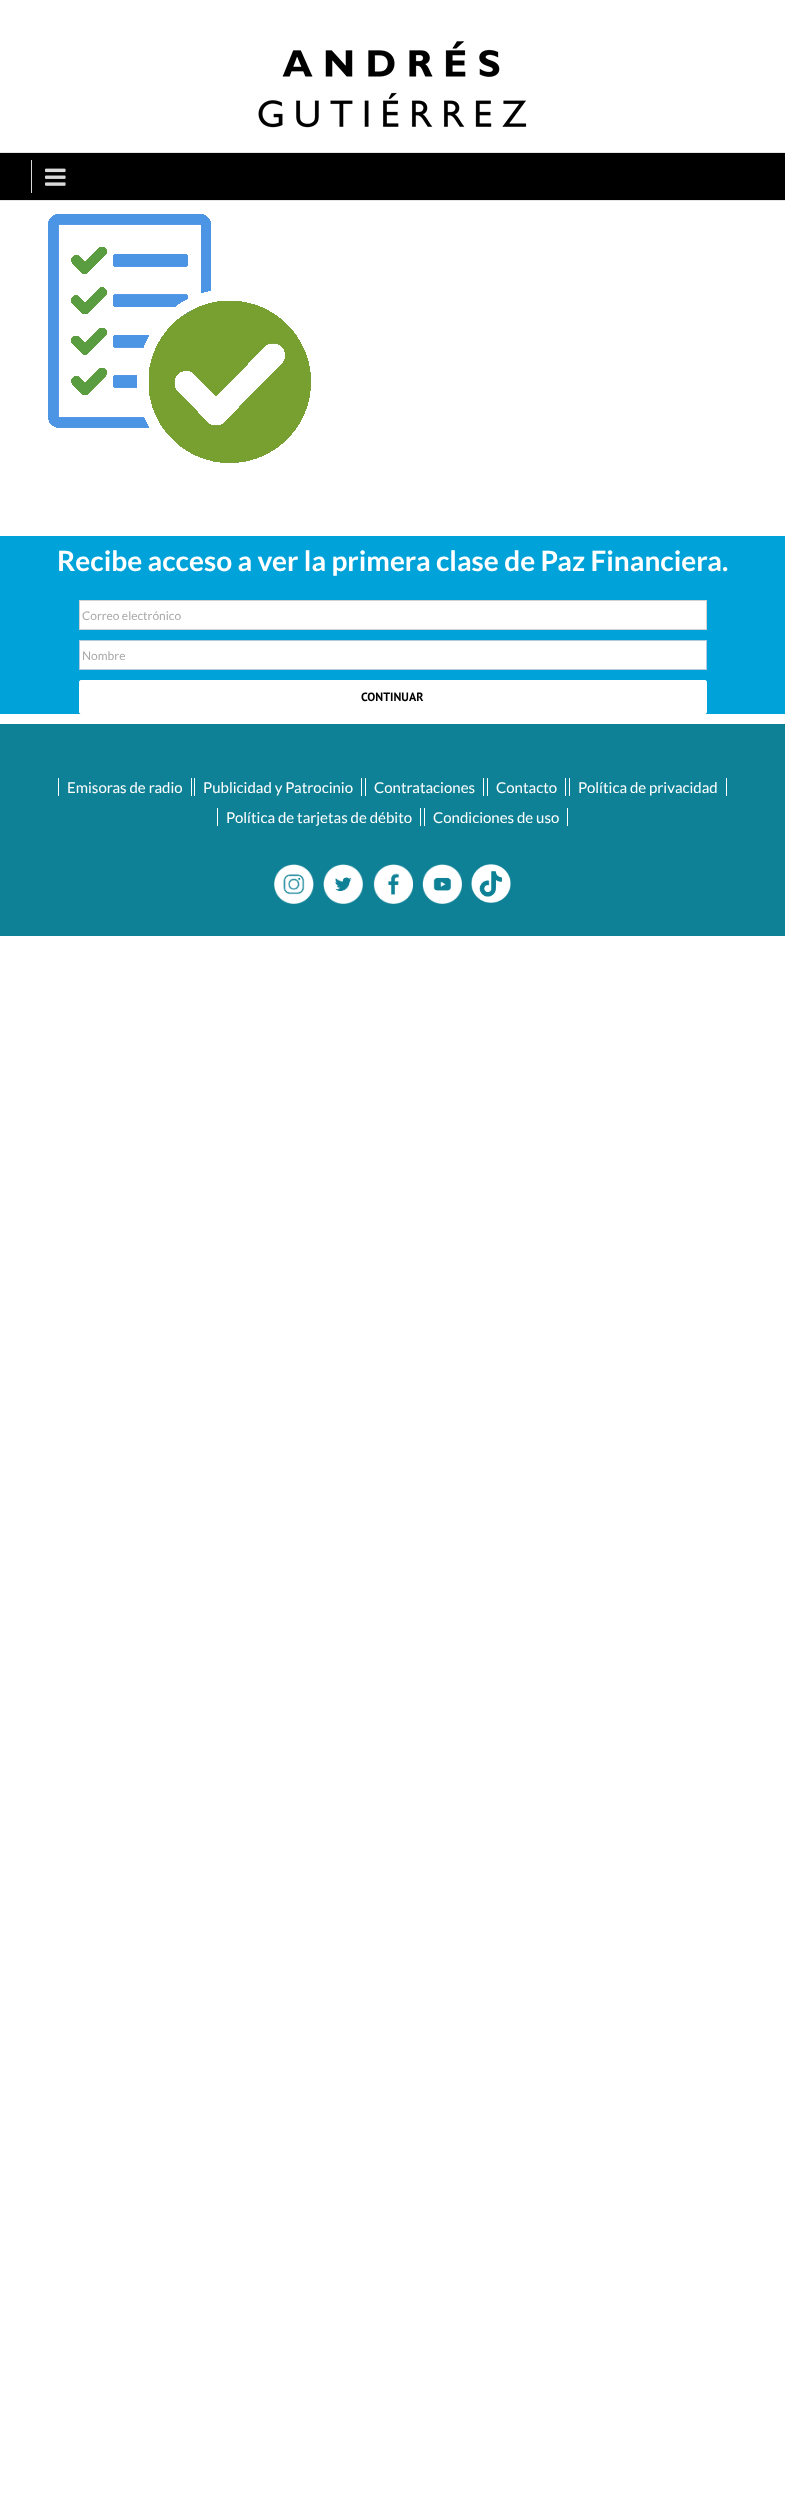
<svg xmlns="http://www.w3.org/2000/svg" width="785" height="2502" viewBox="0 0 785 2502">
  <rect width="100%" height="100%" fill="rgb(255,255,255)"/>
  <rect x="0" y="152" width="785" height="1" fill="rgb(229,229,229)"/>
  <image x="258" y="41" width="269" height="87" href="pic1.png"/>
  <rect x="0" y="153" width="785" height="47" fill="rgb(0,0,0)"/>
  <rect x="0" y="200" width="785" height="1" fill="rgb(229,229,229)"/>
  <rect x="31" y="160" width="1" height="33" fill="rgb(218,218,218)"/>
  <image x="45" y="168" width="21" height="18" href="pic2.png"/>
  <image x="48" y="214" width="263" height="249" href="pic3.png"/>
  <rect x="0" y="536" width="785" height="178" fill="rgb(0,163,217)"/>
  <text x="57" y="571" font-family="Lato" font-size="28" font-weight="bold" fill="rgb(255,255,255)">Recibe acceso a ver la primera clase de Paz Financiera.</text>
  <rect x="79.5" y="600.5" width="627" height="29" fill="rgb(255,255,255)" stroke="rgb(210,210,210)"/>
  <text x="82" y="620" font-family="Lato" font-size="12" fill="rgb(170,169,169)">Correo electrónico</text>
  <rect x="79.5" y="640.5" width="627" height="29" fill="rgb(255,255,255)" stroke="rgb(178,201,223)"/>
  <text x="82" y="660" font-family="Lato" font-size="12" fill="rgb(170,169,169)">Nombre</text>
  <rect x="79.5" y="680.5" width="627" height="33" rx="1.5" fill="rgb(255,255,255)" stroke="rgb(255,255,255)"/>
  <text x="361" y="701" font-family="PT Sans" font-size="12" font-weight="bold" fill="rgb(0,0,0)">CONTINUAR</text>
  <rect x="0" y="724" width="785" height="212" fill="rgb(14,129,150)"/>
  <text x="67" y="793" font-family="Lato" font-size="15" fill="rgb(255,255,255)">Emisoras de radio</text>
  <rect x="191" y="778" width="1" height="18" fill="rgb(255,255,255)"/>
  <rect x="58" y="778" width="1" height="18" fill="rgb(255,255,255)"/>
  <text x="203" y="793" font-family="Lato" font-size="15" fill="rgb(255,255,255)">Publicidad y Patrocinio</text>
  <rect x="361" y="778" width="1" height="18" fill="rgb(255,255,255)"/>
  <rect x="194" y="778" width="1" height="18" fill="rgb(255,255,255)"/>
  <text x="374" y="793" font-family="Lato" font-size="15" fill="rgb(255,255,255)">Contrataciones</text>
  <rect x="483" y="778" width="1" height="18" fill="rgb(255,255,255)"/>
  <rect x="365" y="778" width="1" height="18" fill="rgb(255,255,255)"/>
  <text x="496" y="793" font-family="Lato" font-size="15" fill="rgb(255,255,255)">Contacto</text>
  <rect x="565" y="778" width="1" height="18" fill="rgb(255,255,255)"/>
  <rect x="487" y="778" width="1" height="18" fill="rgb(255,255,255)"/>
  <text x="578" y="793" font-family="Lato" font-size="15" fill="rgb(255,255,255)">Política de privacidad</text>
  <rect x="726" y="778" width="1" height="18" fill="rgb(255,255,255)"/>
  <rect x="569" y="778" width="1" height="18" fill="rgb(255,255,255)"/>
  <text x="226" y="823" font-family="Lato" font-size="15" fill="rgb(255,255,255)">Política de tarjetas de débito</text>
  <rect x="420" y="808" width="1" height="18" fill="rgb(255,255,255)"/>
  <rect x="217" y="808" width="1" height="18" fill="rgb(255,255,255)"/>
  <text x="433" y="823" font-family="Lato" font-size="15" fill="rgb(255,255,255)">Condiciones de uso</text>
  <rect x="567" y="808" width="1" height="18" fill="rgb(255,255,255)"/>
  <rect x="424" y="808" width="1" height="18" fill="rgb(255,255,255)"/>
  <image x="274" y="864" width="40" height="40" href="pic4.png"/>
  <image x="323" y="864" width="40" height="40" href="pic5.png"/>
  <image x="373" y="864" width="40" height="40" href="pic6.png"/>
  <image x="422" y="864" width="40" height="40" href="pic7.png"/>
  <image x="471" y="864" width="40" height="39" href="pic8.png"/>
</svg>
